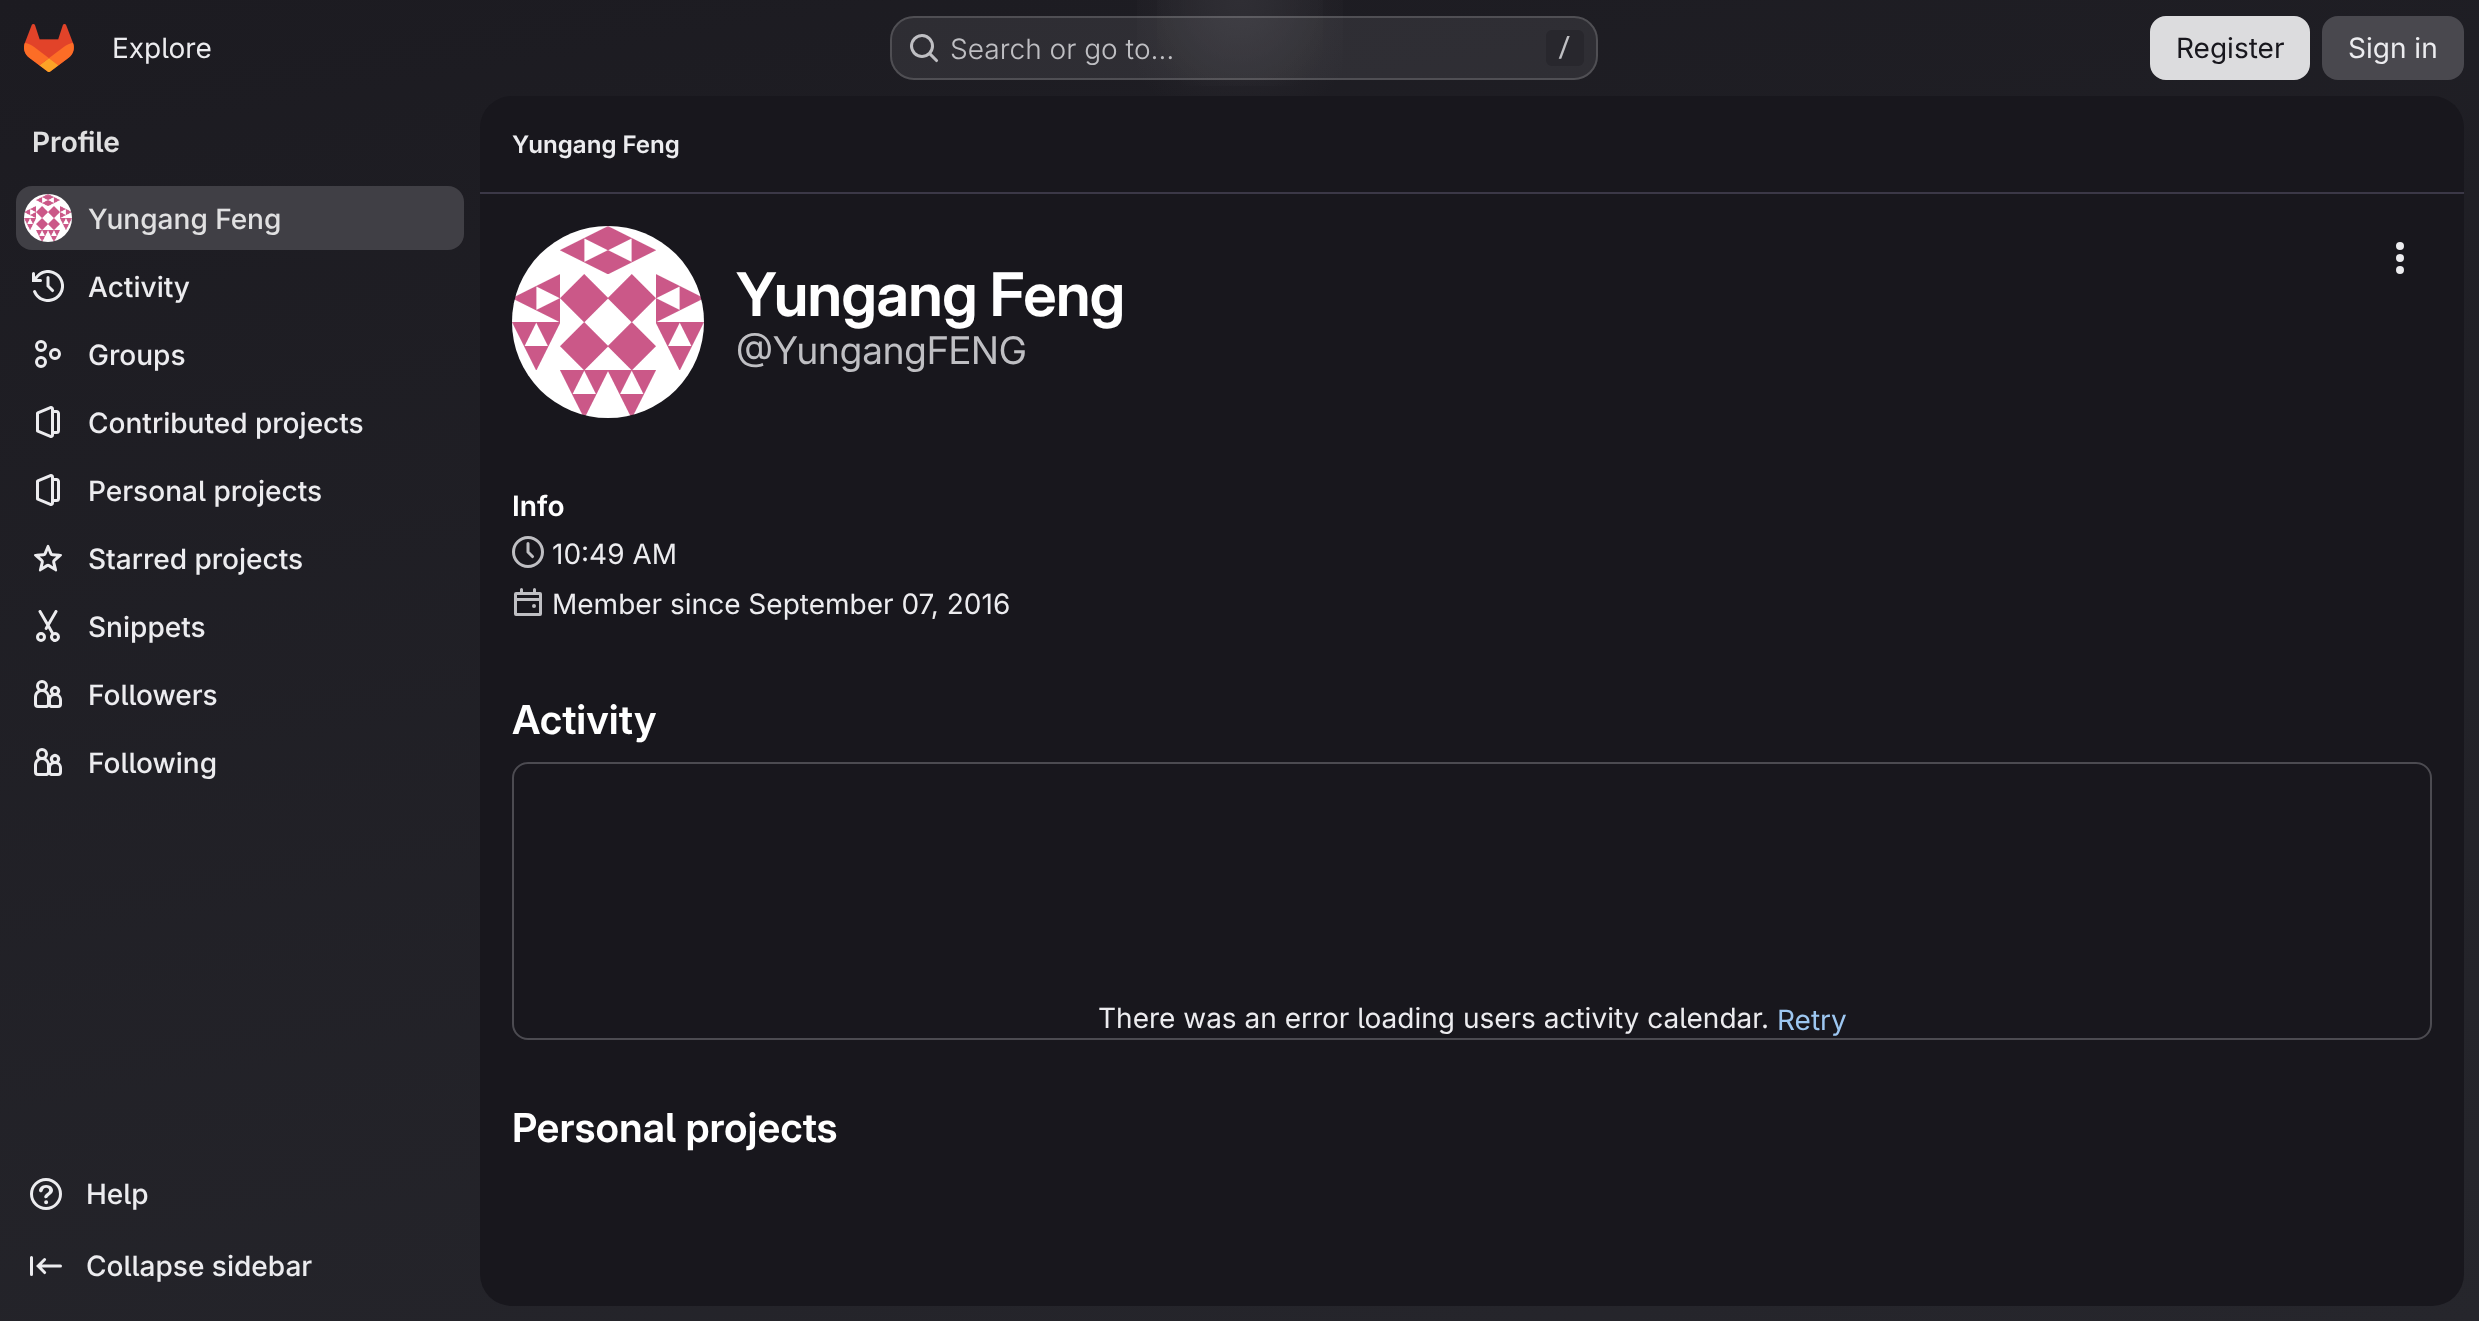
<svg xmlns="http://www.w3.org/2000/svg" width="2479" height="1321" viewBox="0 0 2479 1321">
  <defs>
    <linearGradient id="g1" gradientUnits="userSpaceOnUse" x1="1390" y1="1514" x2="1090" y2="-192"><stop offset="0" stop-color="rgb(38,38,44)"/><stop offset="1" stop-color="rgb(28,27,33)"/></linearGradient>
    <radialGradient id="g2" gradientUnits="userSpaceOnUse" cx="0" cy="0" r="1" gradientTransform="matrix(1240 0 0 1322 1240 0)"><stop offset="0" stop-color="rgb(48,46,52)" stop-opacity="0.7"/><stop offset="0.1" stop-color="rgb(48,46,52)" stop-opacity="0"/></radialGradient>
    <radialGradient id="g3" gradientUnits="userSpaceOnUse" cx="0" cy="0" r="1" gradientTransform="matrix(1240 0 0 1322 1240 0)"><stop offset="0" stop-color="rgb(47,46,52)"/><stop offset="0.08" stop-color="rgb(47,46,52)" stop-opacity="0"/></radialGradient>
  </defs>
  <rect width="100%" height="100%" fill="rgb(255,255,255)"/>
  <rect x="0" y="0" width="2479" height="1321" fill="url(#g1)"/>
  <rect x="1137" y="0" width="206" height="96" fill="url(#g2)"/>
  <rect x="1157" y="0" width="166" height="86" fill="url(#g3)"/>
  <image x="24" y="24" width="50" height="48" href="pic1.png"/>
  <text x="112" y="58" font-family="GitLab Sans" font-size="28" fill="rgb(236,236,239)">Explore</text>
  <rect x="890" y="16" width="708" height="64" rx="24" fill="rgba(255,255,255,0.08)"/>
  <rect x="891" y="17" width="706" height="62" rx="23" fill="none" stroke="rgba(255,255,255,0.16)" stroke-width="2"/>
  <image x="910" y="34" width="29" height="29" href="pic2.png"/>
  <text x="950" y="59" font-family="GitLab Sans" font-size="28" font-weight="300" fill="rgb(191,191,195)">Search or go to…</text>
  <rect x="1546" y="30" width="38" height="36" rx="6" fill="rgb(40,39,45)"/>
  <text x="1557" y="56" font-family="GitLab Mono" font-size="24" font-weight="500" fill="rgb(191,191,195)">/</text>
  <rect x="2151" y="17" width="158" height="62" rx="15" fill="rgb(220,220,222)" stroke="rgb(220,220,222)" stroke-width="2"/>
  <text x="2176" y="58" font-family="GitLab Sans" font-size="28" fill="rgb(24,23,29)">Register</text>
  <rect x="2322" y="16" width="142" height="64" rx="16" fill="rgb(73,72,78)"/>
  <text x="2348" y="58" font-family="GitLab Sans" font-size="28" fill="rgb(236,236,239)">Sign in</text>
  <text x="32" y="152" font-family="'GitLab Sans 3'" font-size="28" font-weight="600" fill="rgb(224,224,225)">Profile</text>
  <rect x="16" y="186" width="448" height="64" rx="16" fill="rgb(64,63,69)"/>
  <image x="24" y="194" width="48" height="48" href="pic3.png"/>
  <circle cx="48" cy="218" r="23" fill="none" stroke="rgba(255,255,255,0.08)" stroke-width="2"/>
  <text x="88" y="229" font-family="GitLab Sans" font-size="28" font-weight="500" fill="rgb(224,224,225)">Yungang Feng</text>
  <image x="32" y="270" width="32" height="32" href="pic4.png"/>
  <text x="88" y="297" font-family="GitLab Sans" font-size="28" font-weight="500" fill="rgb(236,236,239)">Activity</text>
  <image x="35" y="340" width="26" height="28" href="pic5.png"/>
  <text x="88" y="365" font-family="GitLab Sans" font-size="28" font-weight="500" fill="rgb(236,236,239)">Groups</text>
  <image x="36" y="406" width="24" height="32" href="pic6.png"/>
  <text x="88" y="433" font-family="GitLab Sans" font-size="28" font-weight="500" fill="rgb(236,236,239)">Contributed projects</text>
  <image x="36" y="474" width="24" height="32" href="pic7.png"/>
  <text x="88" y="501" font-family="GitLab Sans" font-size="28" font-weight="500" fill="rgb(236,236,239)">Personal projects</text>
  <image x="34" y="544" width="28" height="28" href="pic8.png"/>
  <text x="88" y="569" font-family="GitLab Sans" font-size="28" font-weight="500" fill="rgb(236,236,239)">Starred projects</text>
  <image x="36" y="610" width="24" height="32" href="pic9.png"/>
  <text x="88" y="637" font-family="GitLab Sans" font-size="28" font-weight="500" fill="rgb(236,236,239)">Snippets</text>
  <image x="34" y="680" width="28" height="28" href="pic10.png"/>
  <text x="88" y="705" font-family="GitLab Sans" font-size="28" font-weight="500" fill="rgb(236,236,239)">Followers</text>
  <image x="34" y="748" width="28" height="28" href="pic11.png"/>
  <text x="88" y="773" font-family="GitLab Sans" font-size="28" font-weight="500" fill="rgb(236,236,239)">Following</text>
  <image x="30" y="1178" width="32" height="32" href="pic12.png"/>
  <text x="86" y="1204" font-family="GitLab Sans" font-size="28" font-weight="500" fill="rgb(236,236,239)">Help</text>
  <image x="30" y="1256" width="32" height="20" href="pic13.png"/>
  <text x="86" y="1276" font-family="GitLab Sans" font-size="28" font-weight="500" fill="rgb(236,236,239)">Collapse sidebar</text>
  <rect x="480" y="96" width="1984" height="1210" rx="32" fill="rgb(24,23,29)"/>
  <rect x="480" y="192" width="1984" height="2" fill="rgb(59,56,71)"/>
  <text x="512" y="153" font-family="'GitLab Sans 3'" font-size="24" font-weight="600" fill="rgb(236,236,239)">Yungang Feng</text>
  <image x="2396" y="242" width="8" height="32" href="pic14.png"/>
  <image x="512" y="226" width="192" height="192" href="pic15.png"/>
  <circle cx="608" cy="322" r="95" fill="none" stroke="rgba(255,255,255,0.08)" stroke-width="2"/>
  <text x="736" y="316" font-family="GitLab Sans" font-size="60" font-weight="600" letter-spacing="-0.6" fill="rgb(255,255,255)">Yungang Feng</text>
  <text x="736" y="364" font-family="'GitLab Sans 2'" font-size="38" fill="rgb(191,191,195)">@YungangFENG</text>
  <text x="512" y="516" font-family="'GitLab Sans 3'" font-size="28" font-weight="600" fill="rgb(255,255,255)">Info</text>
  <image x="512" y="536" width="32" height="32" href="pic16.png"/>
  <text x="552" y="564" font-family="GitLab Sans" font-size="28" fill="rgb(236,236,239)">10:49 AM</text>
  <image x="514" y="588" width="28" height="28" href="pic17.png"/>
  <text x="552" y="614" font-family="GitLab Sans" font-size="28" fill="rgb(236,236,239)">Member since September 07, 2016</text>
  <text x="512" y="734" font-family="'GitLab Sans 2'" font-size="40" font-weight="600" fill="rgb(255,255,255)">Activity</text>
  <rect x="513" y="763" width="1918" height="276" rx="15" fill="none" stroke="rgb(76,75,81)" stroke-width="2"/>
  <text x="1098" y="1028" font-family="GitLab Sans" font-size="28" fill="rgb(236,236,239)">There was an error loading users activity calendar.</text>
  <text x="1777" y="1030" font-family="GitLab Sans" font-size="28" fill="rgb(157,199,241)">Retry</text>
  <text x="512" y="1142" font-family="'GitLab Sans 2'" font-size="40" font-weight="600" fill="rgb(255,255,255)">Personal projects</text>
</svg>
